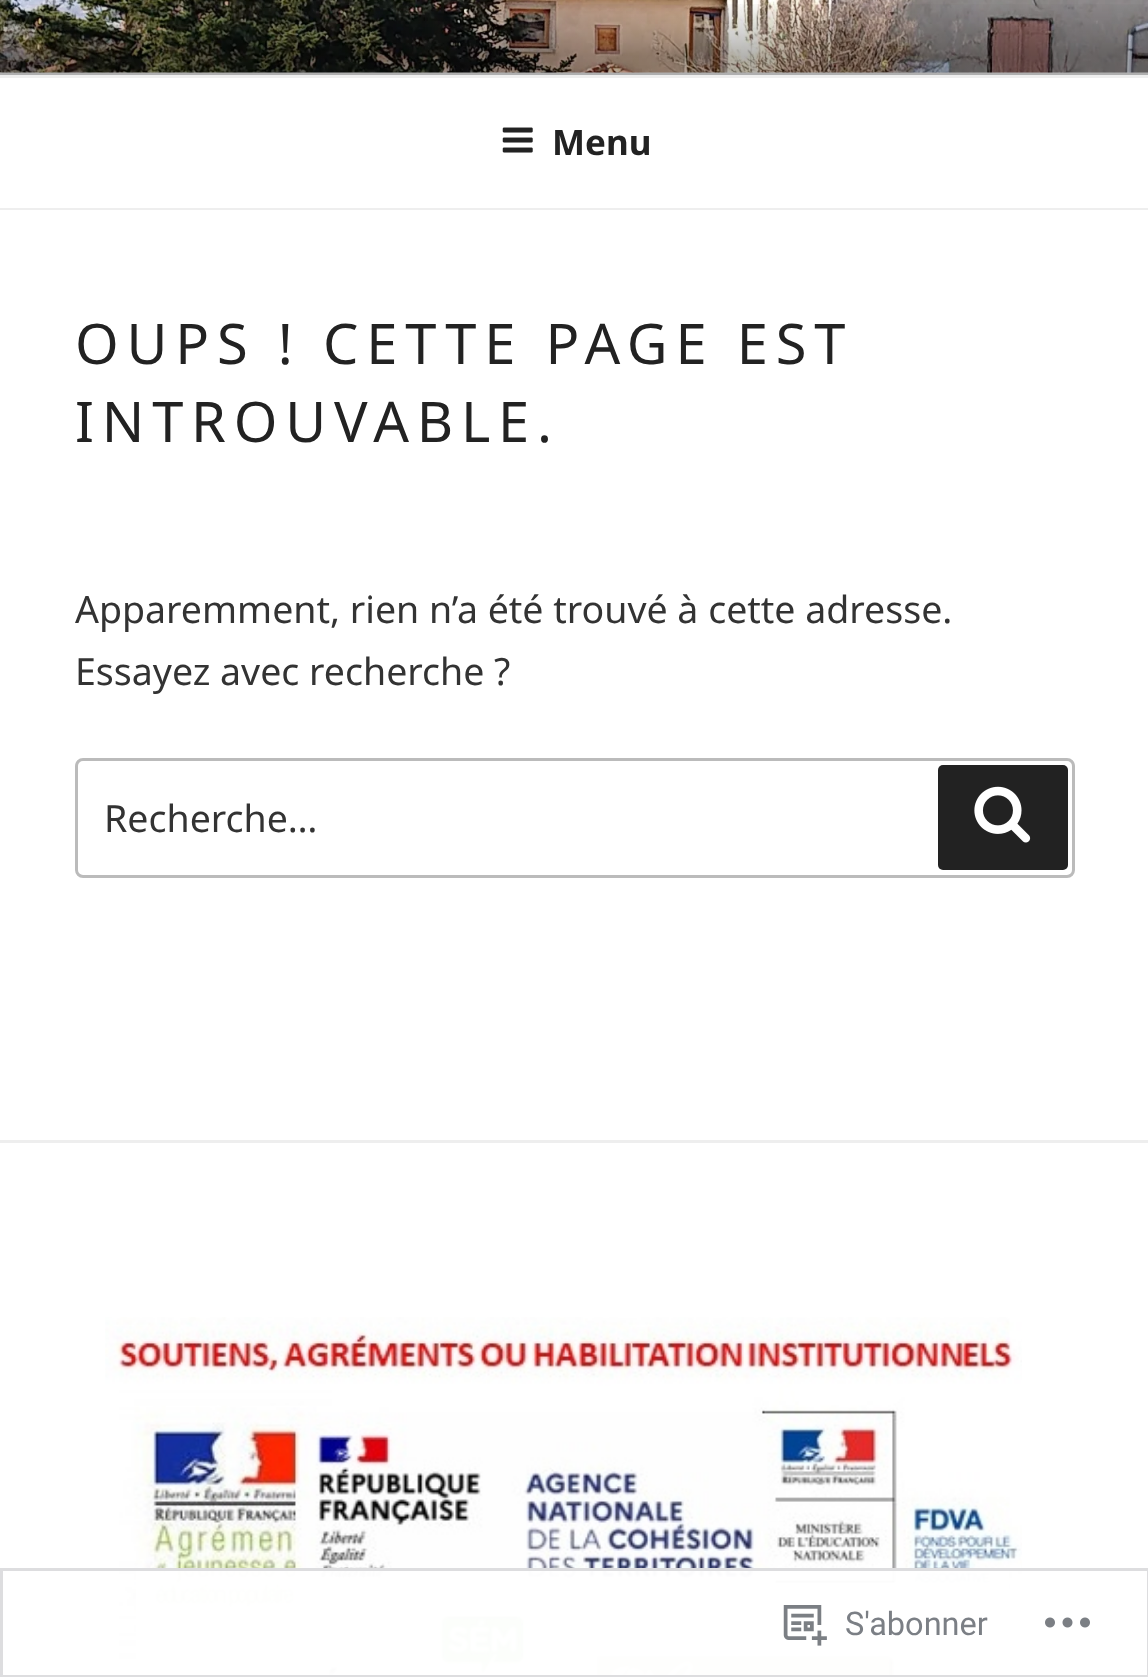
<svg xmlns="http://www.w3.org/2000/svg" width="1148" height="1677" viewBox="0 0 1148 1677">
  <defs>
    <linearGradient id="g1" gradientUnits="userSpaceOnUse" x1="575" y1="0" x2="575" y2="75"><stop offset="0" stop-color="rgb(0,0,0)" stop-opacity="0"/><stop offset="0.75" stop-color="rgb(0,0,0)" stop-opacity="0.3"/><stop offset="1" stop-color="rgb(0,0,0)" stop-opacity="0.3"/></linearGradient>
  </defs>
  <rect width="100%" height="100%" fill="rgb(250,250,250)"/>
  <image x="0" y="0" width="1148" height="73" href="pic1.png"/>
  <rect x="0" y="4" width="1148" height="71" fill="url(#g1)"/>
  <rect x="0" y="78" width="1148" height="130" fill="rgb(255,255,255)"/>
  <rect x="0" y="75" width="1148" height="3" fill="rgb(238,238,238)"/>
  <rect x="0" y="208" width="1148" height="2" fill="rgb(238,238,238)"/>
  <image x="502" y="127" width="31" height="26" href="pic2.png"/>
  <text x="552" y="155" font-family="Noto Sans" font-size="35" font-weight="bold" fill="rgb(34,34,34)">Menu</text>
  <rect x="0" y="210" width="1148" height="1467" fill="rgb(255,255,255)"/>
  <g font-family="Noto Sans" font-size="56" letter-spacing="7.8" fill="rgb(34,34,34)">
    <text>
      <tspan x="75" y="364">OUPS ! CETTE PAGE EST</tspan>
      <tspan x="75" y="442">INTROUVABLE.</tspan>
    </text>
  </g>
  <g font-family="Noto Sans" font-size="37.5" fill="rgb(51,51,51)">
    <text>
      <tspan x="75" y="623">Apparemment, rien n’a été trouvé à cette adresse.</tspan>
      <tspan x="75" y="685">Essayez avec recherche ?</tspan>
    </text>
  </g>
  <rect x="76.5" y="759.5" width="997" height="117" rx="6.5" fill="none" stroke="rgb(187,187,187)" stroke-width="3"/>
  <text x="104" y="832" font-family="Noto Sans" font-size="37.5" fill="rgb(51,51,51)">Recherche…</text>
  <rect x="938" y="765" width="130" height="105" rx="5" fill="rgb(34,34,34)"/>
  <image x="974" y="786" width="57" height="57" href="pic3.png"/>
  <rect x="0" y="1140" width="1148" height="3" fill="rgb(238,238,238)"/>
  <image x="105" y="1317" width="917" height="360" href="pic4.png"/>
  <rect x="136" y="1568" width="873" height="109" fill="rgba(255,255,255,0.98)"/>
  <rect x="1.5" y="1569.5" width="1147" height="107" fill="none" stroke="rgba(220,220,222,0.98)" stroke-width="3"/>
  <image x="783" y="1605" width="44" height="41" href="pic5.png"/>
  <text x="845" y="1635" font-family="Roboto" font-size="32.5" fill="rgb(123,127,133)">S'abonner</text>
  <image x="1045" y="1617" width="45" height="11" href="pic6.png"/>
</svg>
